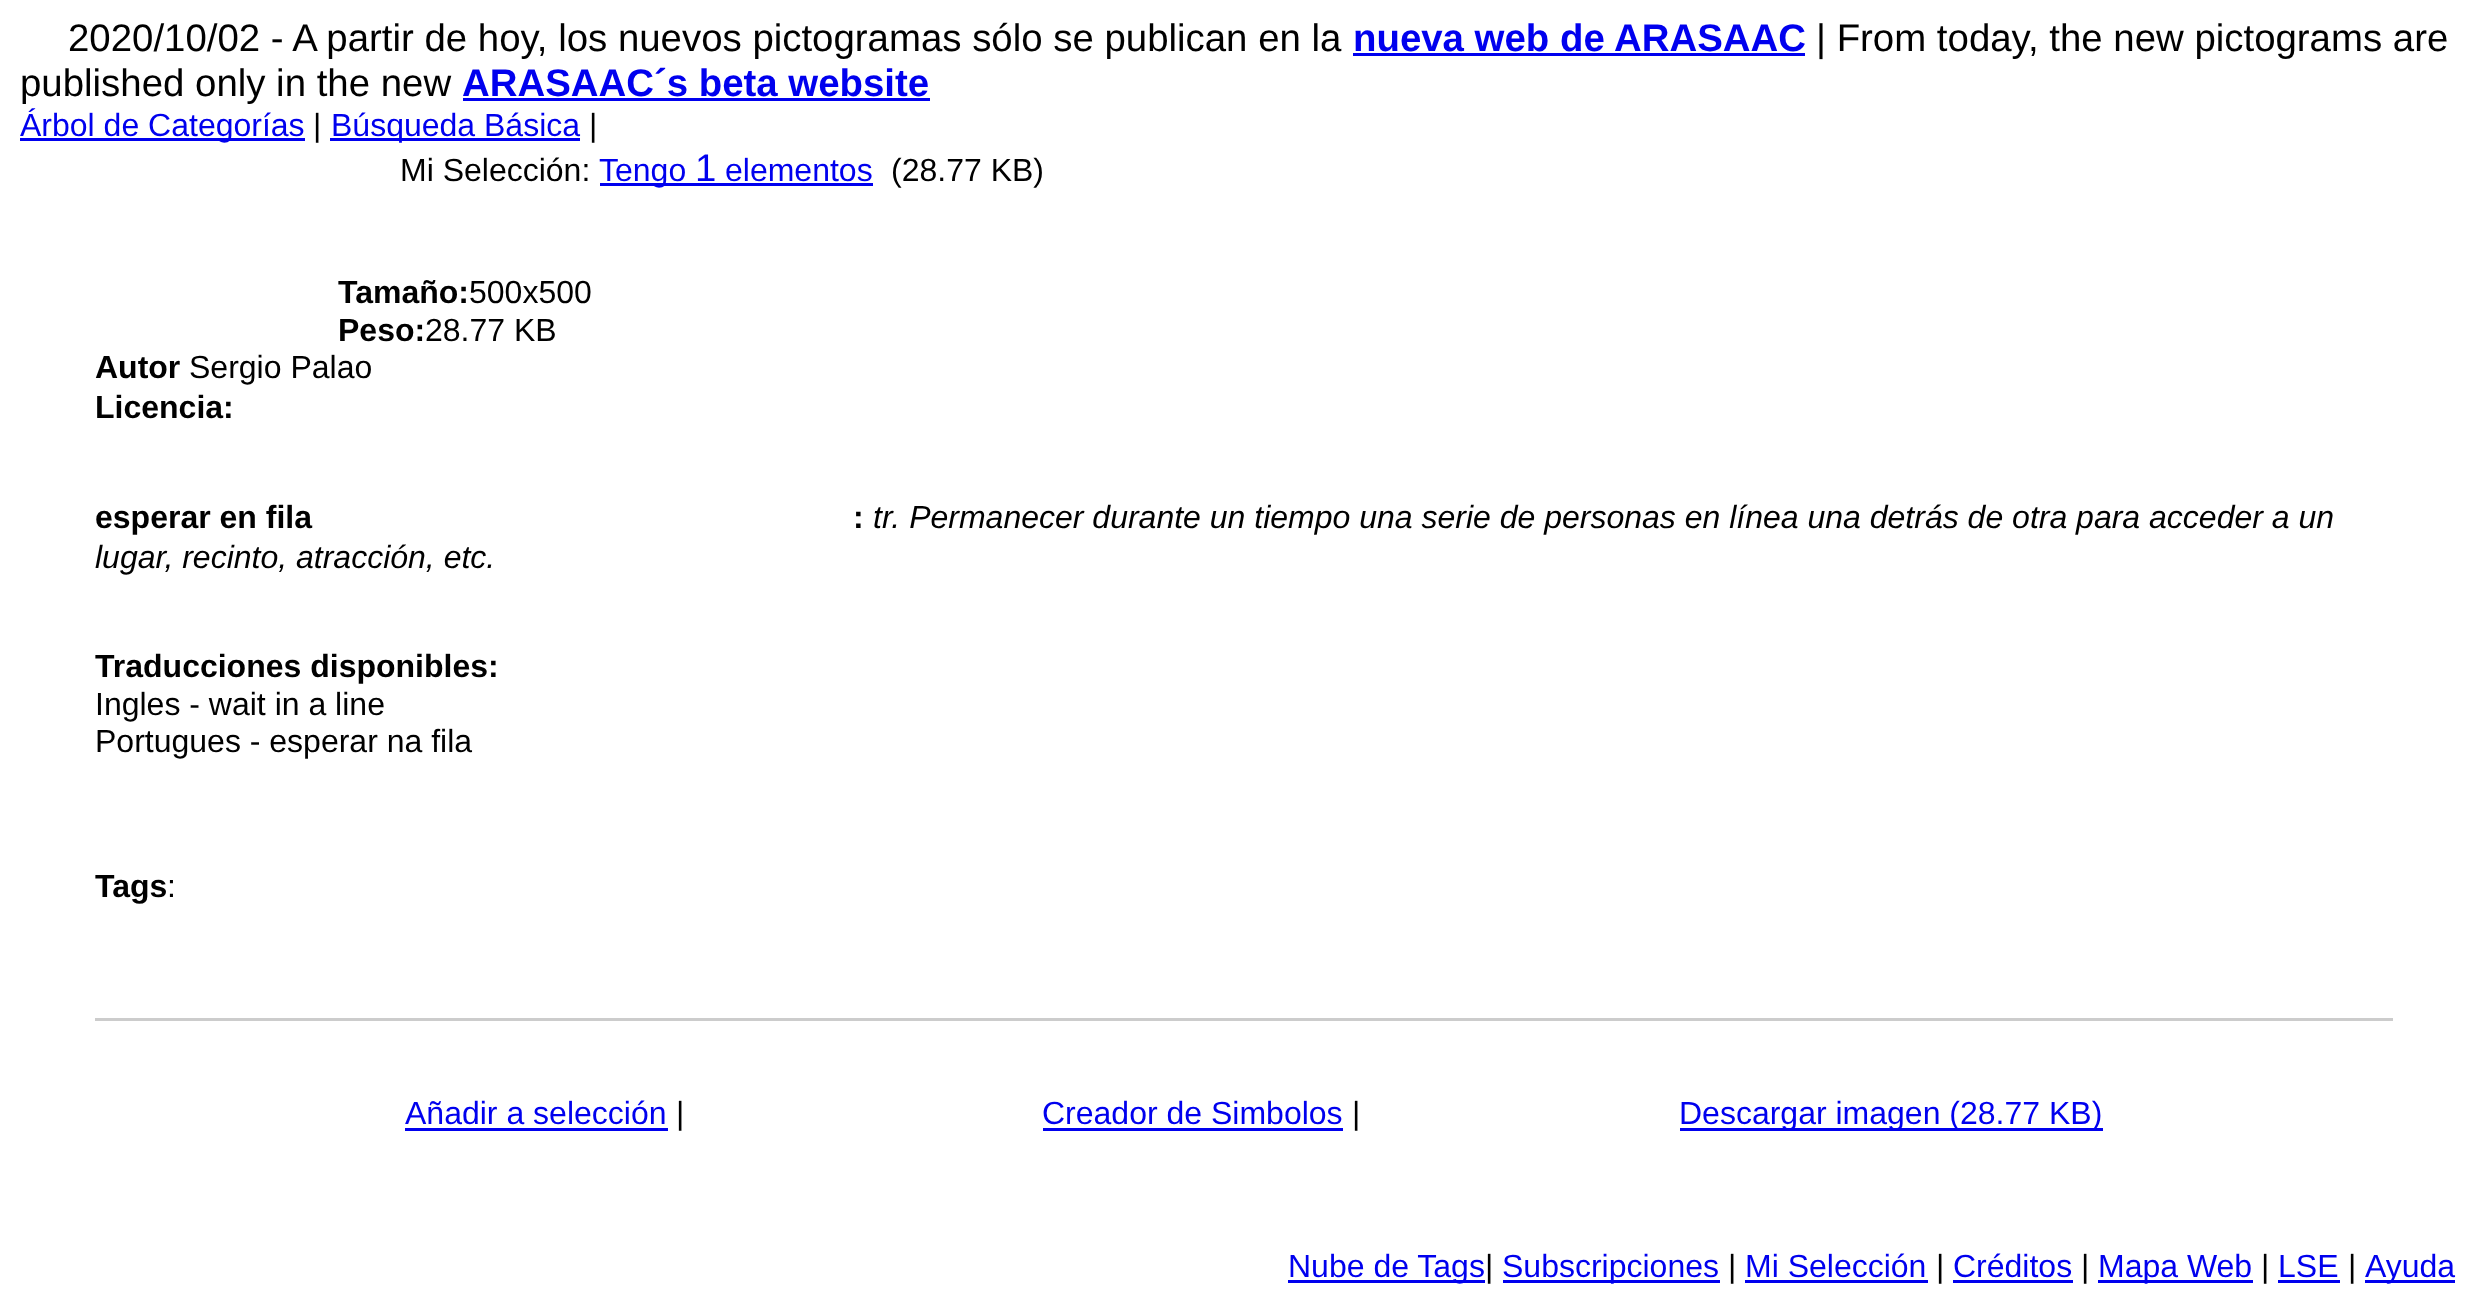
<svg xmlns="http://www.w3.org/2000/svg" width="2486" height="1307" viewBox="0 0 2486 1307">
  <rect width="100%" height="100%" fill="rgb(255,255,255)"/>
  <text x="68" y="51" font-family="Liberation Sans" font-size="38.4" fill="rgb(0,0,0)">2020/10/02 - A partir de hoy, los nuevos pictogramas sólo se publican en la</text>
  <text x="1353" y="51" font-family="Liberation Sans" font-size="38.4" font-weight="bold" fill="rgb(0,0,238)">nueva web de ARASAAC</text>
  <rect x="1353" y="53" width="452" height="3" fill="rgb(0,0,238)"/>
  <g font-family="Liberation Sans" font-size="38.4" fill="rgb(0,0,0)">
    <text x="1816" y="51">| From today, the new pictograms are</text>
    <text x="20" y="96">published only in the new</text>
  </g>
  <text x="462" y="96" font-family="Liberation Sans" font-size="38.4" font-weight="bold" fill="rgb(0,0,238)">ARASAAC´s beta website</text>
  <rect x="463" y="98" width="467" height="3" fill="rgb(0,0,238)"/>
  <rect x="20" y="138" width="285" height="3" fill="rgb(0,0,238)"/>
  <text x="20" y="136" font-family="Liberation Sans" font-size="32" fill="rgb(0,0,238)">Árbol de Categorías</text>
  <text x="313" y="136" font-family="Liberation Sans" font-size="32" fill="rgb(0,0,0)">|</text>
  <rect x="330" y="138" width="250" height="3" fill="rgb(0,0,238)"/>
  <text x="331" y="136" font-family="Liberation Sans" font-size="32" fill="rgb(0,0,238)">Búsqueda Básica</text>
  <g font-family="Liberation Sans" font-size="32" fill="rgb(0,0,0)">
    <text x="589" y="136">|</text>
    <text x="400" y="181">Mi Selección:</text>
  </g>
  <rect x="600" y="183" width="273" height="3" fill="rgb(0,0,238)"/>
  <text x="599" y="181" font-family="Liberation Sans" font-size="32" fill="rgb(0,0,238)">Tengo</text>
  <text x="695" y="181" font-family="Liberation Sans" font-size="38.4" fill="rgb(0,0,238)">1</text>
  <text x="725" y="181" font-family="Liberation Sans" font-size="32" fill="rgb(0,0,238)">elementos</text>
  <text x="891" y="181" font-family="Liberation Sans" font-size="32" fill="rgb(0,0,0)">(28.77 KB)</text>
  <text x="338" y="303" font-family="Liberation Sans" font-size="32" font-weight="bold" fill="rgb(0,0,0)">Tamaño:</text>
  <text x="469" y="303" font-family="Liberation Sans" font-size="32" fill="rgb(0,0,0)">500x500</text>
  <text x="338" y="341" font-family="Liberation Sans" font-size="32" font-weight="bold" fill="rgb(0,0,0)">Peso:</text>
  <text x="425" y="341" font-family="Liberation Sans" font-size="32" fill="rgb(0,0,0)">28.77 KB</text>
  <text x="95" y="378" font-family="Liberation Sans" font-size="32" font-weight="bold" fill="rgb(0,0,0)">Autor</text>
  <text x="189" y="378" font-family="Liberation Sans" font-size="32" fill="rgb(0,0,0)">Sergio Palao</text>
  <g font-family="Liberation Sans" font-size="32" font-weight="bold" fill="rgb(0,0,0)">
    <text x="95" y="418">Licencia:</text>
    <text x="95" y="528">esperar en fila</text>
    <text x="853" y="528">:</text>
  </g>
  <g font-family="Liberation Sans" font-size="32" font-style="italic" fill="rgb(0,0,0)">
    <text x="873" y="528">tr. Permanecer durante un tiempo una serie de personas en línea una detrás de otra para acceder a un</text>
    <text x="95" y="568">lugar, recinto, atracción, etc.</text>
  </g>
  <text x="95" y="677" font-family="Liberation Sans" font-size="32" font-weight="bold" fill="rgb(0,0,0)">Traducciones disponibles:</text>
  <g font-family="Liberation Sans" font-size="32" fill="rgb(0,0,0)">
    <text>
      <tspan x="95" y="715">Ingles - wait in a line</tspan>
      <tspan x="95" y="752">Portugues - esperar na fila</tspan>
    </text>
  </g>
  <text x="95" y="897" font-family="Liberation Sans" font-size="32" font-weight="bold" fill="rgb(0,0,0)">Tags</text>
  <text x="167" y="897" font-family="Liberation Sans" font-size="32" fill="rgb(0,0,0)">:</text>
  <rect x="95" y="1018" width="2298" height="3" fill="rgb(204,204,204)"/>
  <text x="405" y="1124" font-family="Liberation Sans" font-size="32" fill="rgb(0,0,238)">Añadir a selección</text>
  <rect x="405" y="1128" width="263" height="3" fill="rgb(0,0,238)"/>
  <text x="676" y="1124" font-family="Liberation Sans" font-size="32" fill="rgb(0,0,0)">|</text>
  <text x="1042" y="1124" font-family="Liberation Sans" font-size="32" fill="rgb(0,0,238)">Creador de Simbolos</text>
  <rect x="1043" y="1128" width="300" height="3" fill="rgb(0,0,238)"/>
  <text x="1352" y="1124" font-family="Liberation Sans" font-size="32" fill="rgb(0,0,0)">|</text>
  <rect x="1680" y="1128" width="423" height="3" fill="rgb(0,0,238)"/>
  <text x="1679" y="1124" font-family="Liberation Sans" font-size="32" fill="rgb(0,0,238)">Descargar imagen (28.77 KB)</text>
  <rect x="1288" y="1280" width="197" height="3" fill="rgb(0,0,238)"/>
  <text x="1288" y="1277" font-family="Liberation Sans" font-size="32" fill="rgb(0,0,238)">Nube de Tags</text>
  <text x="1485" y="1277" font-family="Liberation Sans" font-size="32" fill="rgb(0,0,0)">|</text>
  <rect x="1503" y="1280" width="217" height="3" fill="rgb(0,0,238)"/>
  <text x="1502" y="1277" font-family="Liberation Sans" font-size="32" fill="rgb(0,0,238)">Subscripciones</text>
  <text x="1728" y="1277" font-family="Liberation Sans" font-size="32" fill="rgb(0,0,0)">|</text>
  <text x="1745" y="1277" font-family="Liberation Sans" font-size="32" fill="rgb(0,0,238)">Mi Selección</text>
  <rect x="1745" y="1280" width="183" height="3" fill="rgb(0,0,238)"/>
  <text x="1936" y="1277" font-family="Liberation Sans" font-size="32" fill="rgb(0,0,0)">|</text>
  <text x="1953" y="1277" font-family="Liberation Sans" font-size="32" fill="rgb(0,0,238)">Créditos</text>
  <rect x="1953" y="1280" width="120" height="3" fill="rgb(0,0,238)"/>
  <text x="2081" y="1277" font-family="Liberation Sans" font-size="32" fill="rgb(0,0,0)">|</text>
  <rect x="2098" y="1280" width="155" height="3" fill="rgb(0,0,238)"/>
  <text x="2098" y="1277" font-family="Liberation Sans" font-size="32" fill="rgb(0,0,238)">Mapa Web</text>
  <text x="2261" y="1277" font-family="Liberation Sans" font-size="32" fill="rgb(0,0,0)">|</text>
  <text x="2278" y="1277" font-family="Liberation Sans" font-size="32" fill="rgb(0,0,238)">LSE</text>
  <rect x="2278" y="1280" width="62" height="3" fill="rgb(0,0,238)"/>
  <text x="2348" y="1277" font-family="Liberation Sans" font-size="32" fill="rgb(0,0,0)">|</text>
  <rect x="2365" y="1280" width="90" height="3" fill="rgb(0,0,238)"/>
  <text x="2365" y="1277" font-family="Liberation Sans" font-size="32" fill="rgb(0,0,238)">Ayuda</text>
</svg>
